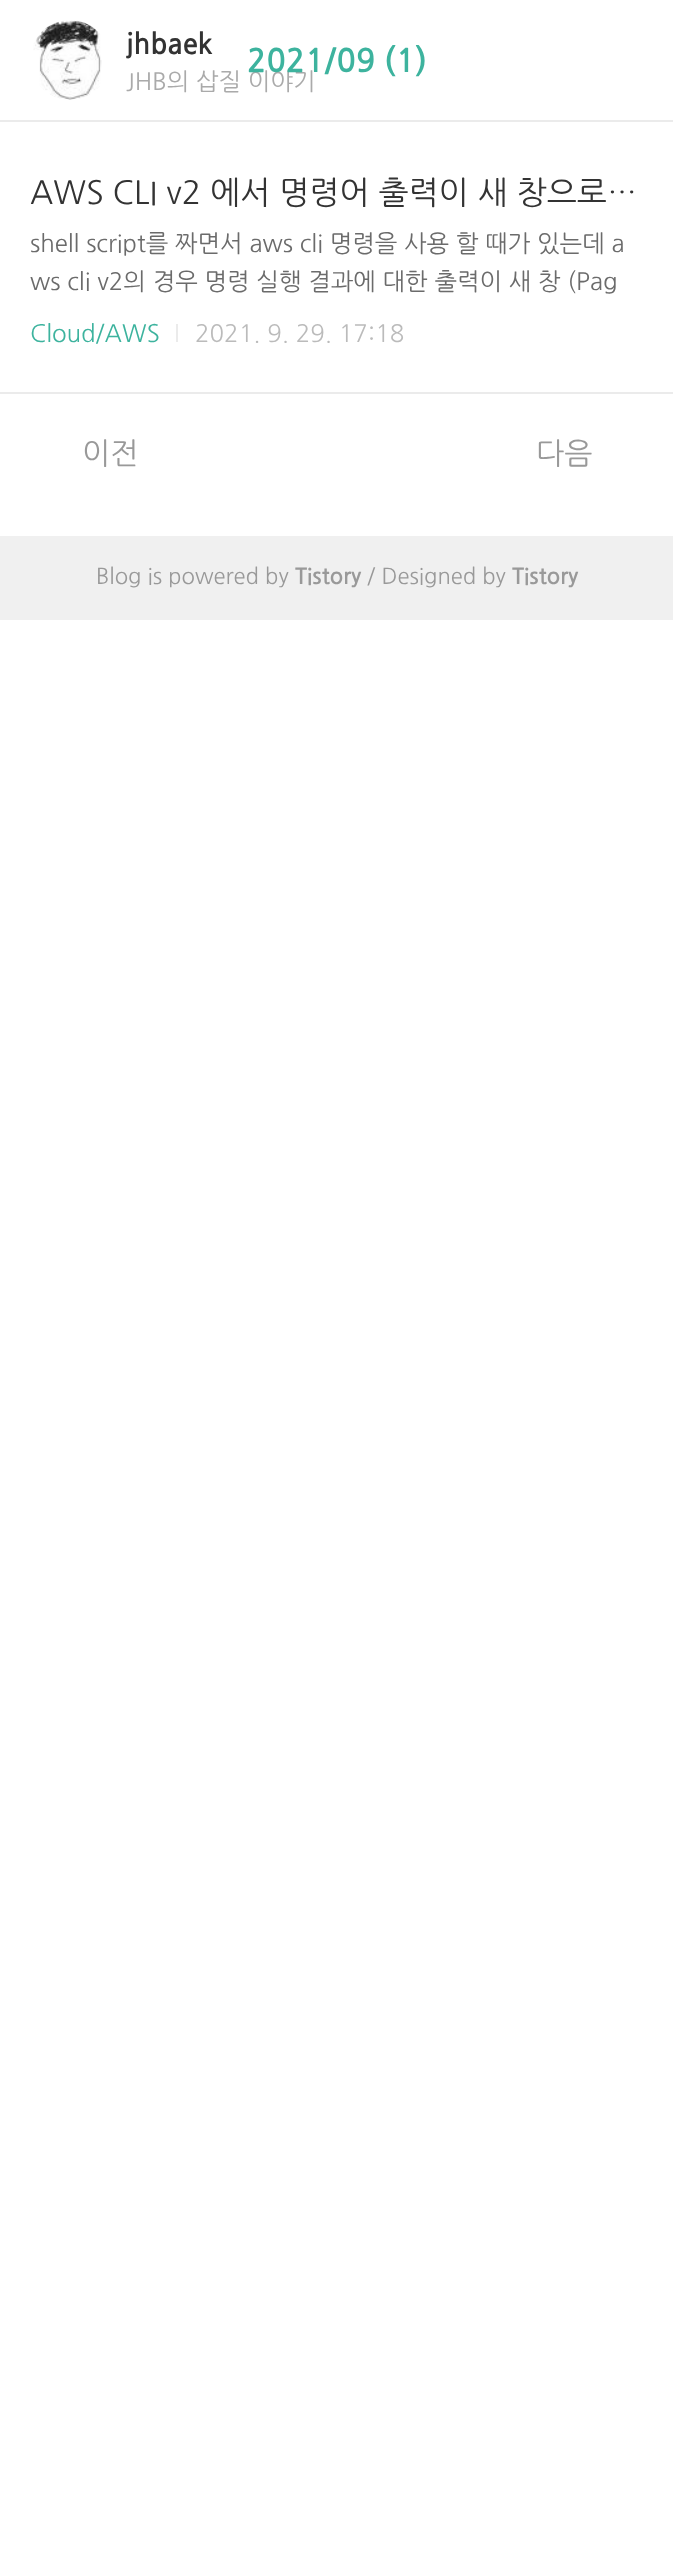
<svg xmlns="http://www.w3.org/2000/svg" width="673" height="2570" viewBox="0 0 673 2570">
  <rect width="100%" height="100%" fill="rgb(255,255,255)"/>
  <rect x="0" y="120" width="673" height="2" fill="rgb(235,235,235)"/>
  <image x="33" y="20" width="69" height="80" href="pic1.png"/>
  <text x="126" y="54" font-family="NanumGothic" font-size="28" font-weight="bold" fill="rgb(51,51,51)">jhbaek</text>
  <text x="126" y="90" font-family="NanumGothic" font-size="24" fill="rgb(170,170,170)">JHB의 삽질 이야기</text>
  <text x="247" y="72" font-family="NanumGothic" font-size="32" font-weight="bold" fill="rgb(61,179,158)">2021/09 (1)</text>
  <rect x="0" y="392" width="673" height="2" fill="rgb(235,235,235)"/>
  <text x="30" y="204" font-family="NanumGothic" font-size="32" fill="rgb(51,51,51)">AWS CLI v2 에서 명령어 출력이 새 창으로…</text>
  <g font-family="NanumGothic" font-size="24" fill="rgb(107,107,107)">
    <text>
      <tspan x="30" y="252">shell script를 짜면서 aws cli 명령을 사용 할 때가 있는데 a</tspan>
      <tspan x="30" y="290">ws cli v2의 경우 명령 실행 결과에 대한 출력이 새 창 (Pag</tspan>
    </text>
  </g>
  <text x="30" y="342" font-family="NanumGothic" font-size="24" fill="rgb(61,179,158)">Cloud/AWS</text>
  <rect x="176" y="324" width="2" height="18" fill="rgb(235,235,235)"/>
  <text x="195" y="342" font-family="NanumGothic" font-size="24" fill="rgb(187,187,187)">2021. 9. 29. 17:18</text>
  <g font-family="NanumGothic" font-size="30" fill="rgb(153,153,153)">
    <text x="82" y="464">이전</text>
    <text x="536" y="464">다음</text>
  </g>
  <rect x="0" y="536" width="673" height="84" fill="rgb(240,240,240)"/>
  <text x="96" y="584" font-family="NanumGothic" font-size="22" fill="rgb(153,153,153)">Blog is powered by</text>
  <text x="295" y="584" font-family="NanumGothic" font-size="22" font-weight="bold" fill="rgb(153,153,153)">Tistory</text>
  <text x="367" y="584" font-family="NanumGothic" font-size="22" fill="rgb(153,153,153)">/ Designed by</text>
  <text x="512" y="584" font-family="NanumGothic" font-size="22" font-weight="bold" fill="rgb(153,153,153)">Tistory</text>
</svg>
